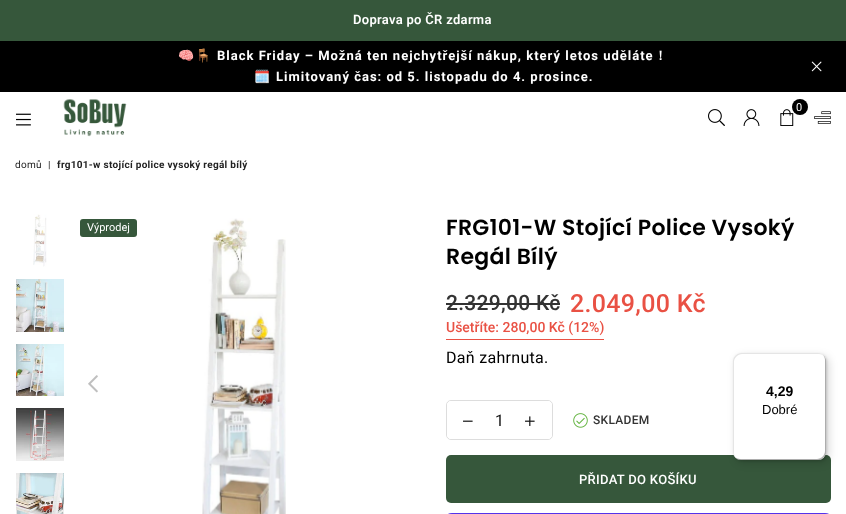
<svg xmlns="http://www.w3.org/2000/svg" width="846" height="514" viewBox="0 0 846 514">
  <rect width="100%" height="100%" fill="rgb(255,255,255)"/>
  <rect x="0" y="0" width="846" height="41" fill="rgb(54,87,59)"/>
  <text x="353" y="24" font-family="Roboto" font-size="13" font-weight="600" letter-spacing="0.3" fill="rgb(255,255,255)">Doprava po ČR zdarma</text>
  <rect x="0" y="41" width="846" height="51" fill="rgb(0,0,0)"/>
  <text x="178" y="60" font-family="Noto Color Emoji" font-size="13" font-weight="bold" letter-spacing="1" fill="rgb(255,255,255)">🧠🪑</text>
  <text x="217" y="60" font-family="Roboto" font-size="13" font-weight="bold" letter-spacing="1" fill="rgb(255,255,255)">Black Friday – Možná ten nejchytřejší nákup, který letos uděláte</text>
  <text x="654" y="60" font-family="WenQuanYi Zen Hei" font-size="13" font-weight="bold" letter-spacing="1" fill="rgb(255,255,255)">！</text>
  <text x="254" y="81" font-family="Noto Color Emoji" font-size="13" font-weight="bold" letter-spacing="1" fill="rgb(255,255,255)">🗓️</text>
  <text x="276" y="81" font-family="Roboto" font-size="13" font-weight="bold" letter-spacing="1" fill="rgb(255,255,255)">Limitovaný čas: od 5. listopadu do 4. prosince.</text>
  <image x="811" y="61" width="11" height="11" href="pic1.png"/>
  <image x="63" y="99" width="64" height="38" href="pic2.png"/>
  <image x="780" y="109" width="14" height="17" href="pic3.png"/>
  <circle cx="800" cy="107" r="8" fill="rgb(0,0,0)"/>
  <text x="796" y="111" font-family="Roboto" font-size="11" letter-spacing="0.3" fill="rgb(255,255,255)">0</text>
  <image x="708" y="109" width="17" height="17" href="pic4.png"/>
  <image x="743" y="109" width="17" height="17" href="pic5.png"/>
  <image x="814" y="111" width="17" height="13" href="pic6.png"/>
  <image x="16" y="113" width="15" height="13" href="pic7.png"/>
  <g font-family="Roboto" font-size="10" letter-spacing="0.3" fill="rgb(34,34,34)">
    <text x="15" y="168">domů</text>
    <text x="48" y="168">|</text>
  </g>
  <text x="57" y="168" font-family="Roboto" font-size="10" font-weight="bold" letter-spacing="0.3" fill="rgb(34,34,34)">frg101-w stojící police vysoký regál bílý</text>
  <image x="33" y="214" width="14" height="53" href="pic8.png"/>
  <image x="16" y="279" width="48" height="53" href="pic9.png"/>
  <image x="16" y="344" width="48" height="52" href="pic10.png"/>
  <image x="16" y="408" width="48" height="53" href="pic11.png"/>
  <image x="16" y="473" width="48" height="41" href="pic12.png"/>
  <image x="88" y="375" width="10" height="18" href="pic13.png"/>
  <image x="202" y="218" width="84" height="296" href="pic14.png"/>
  <rect x="80" y="219" width="57" height="18" rx="3" fill="rgb(54,87,59)"/>
  <text x="87" y="231" font-family="Roboto" font-size="11" fill="rgb(255,255,255)">Výprodej</text>
  <g font-family="Poppins" font-size="22" font-weight="600" letter-spacing="0.3" fill="rgb(0,0,0)">
    <text>
      <tspan x="446" y="235">FRG101-W Stojící Police Vysoký</tspan>
      <tspan x="446" y="264">Regál Bílý</tspan>
    </text>
  </g>
  <text x="446" y="310" font-family="Roboto" font-size="21" font-weight="500" letter-spacing="0.3" fill="rgb(51,51,51)">2.329,00 Kč</text>
  <rect x="446" y="303" width="114" height="2" fill="rgb(51,51,51)"/>
  <text x="570" y="312" font-family="Roboto" font-size="25" font-weight="500" letter-spacing="0.3" fill="rgb(233,81,68)">2.049,00 Kč</text>
  <rect x="446" y="339" width="158" height="1" fill="rgb(233,81,68)"/>
  <text x="446" y="332" font-family="Roboto" font-size="14" font-weight="500" fill="rgb(233,81,68)">Ušetříte: 280,00 Kč (12%)</text>
  <text x="446" y="363" font-family="Roboto" font-size="16" letter-spacing="0.3" fill="rgb(0,0,0)">Daň zahrnuta.</text>
  <rect x="446.5" y="400.5" width="106" height="39" rx="4.5" fill="none" stroke="rgb(221,221,221)"/>
  <path d="M451 401H482V439H451C449 439 447 437 447 435V405C447 403 449 401 451 401Z" fill="rgb(255,255,255)"/>
  <image x="463" y="420" width="10" height="2" href="pic15.png"/>
  <text x="495" y="426" font-family="Roboto" font-size="16" fill="rgb(17,17,17)">1</text>
  <path d="M517 401H548C550 401 552 403 552 405V435C552 437 550 439 548 439H517Z" fill="rgb(255,255,255)"/>
  <image x="525" y="416" width="10" height="10" href="pic16.png"/>
  <image x="573" y="413" width="15" height="15" href="pic17.png"/>
  <text x="593" y="424" font-family="Roboto" font-size="12" font-weight="500" letter-spacing="0.3" fill="rgb(51,51,51)">SKLADEM</text>
  <rect x="446" y="455" width="385" height="48" rx="5" fill="rgb(54,87,59)"/>
  <text x="579" y="484" font-family="Roboto" font-size="13" font-weight="500" letter-spacing="0.3" fill="rgb(255,255,255)">PŘIDAT DO KOŠÍKU</text>
  <rect x="446" y="513" width="385" height="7" rx="6" fill="rgb(84,51,235)"/>
  <rect x="736" y="356" width="93" height="107" rx="8" fill="rgba(0,0,0,0.15)" filter="blur(4px)"/>
  <rect x="734" y="354" width="93" height="107" rx="8" fill="rgba(0,0,0,0.15)" filter="blur(1px)"/>
  <rect x="733" y="353" width="93" height="107" rx="8" fill="rgb(255,255,255)"/>
  <path d="M742 354H819C821 354 823 355 825 357C823 355 821 353 818 353H741C737 353 733 357 733 361V452C733 455 735 457 737 459C735 457 734 455 734 453V362C734 358 738 354 742 354Z" fill="rgb(229,229,229)"/>
  <path d="M734 456C736 458 738 460 741 460H818C822 460 826 456 826 452V361C826 358 824 356 822 354C824 356 825 358 825 360V451C825 455 821 459 817 459H740C738 459 736 458 734 456Z" fill="rgba(0,0,0,0.2)"/>
  <path d="M735 457C736 459 739 460 741 460H818C822 460 826 456 826 452V361C826 359 825 356 823 355C824 356 825 358 825 360V451C825 456 822 459 817 459H740C738 459 736 458 735 457Z" fill="rgba(50,50,50,0.2)"/>
  <path d="M818 460C822.5 460 826 456.5 826 452C826 456 822 460 818 460Z" fill="rgba(255,255,255,0.3)"/>
  <text x="766" y="396" font-family="Liberation Sans" font-size="14" font-weight="bold" fill="rgb(0,0,0)">4,29</text>
  <text x="762" y="414" font-family="Liberation Sans" font-size="13" fill="rgb(0,0,0)">Dobré</text>
</svg>
